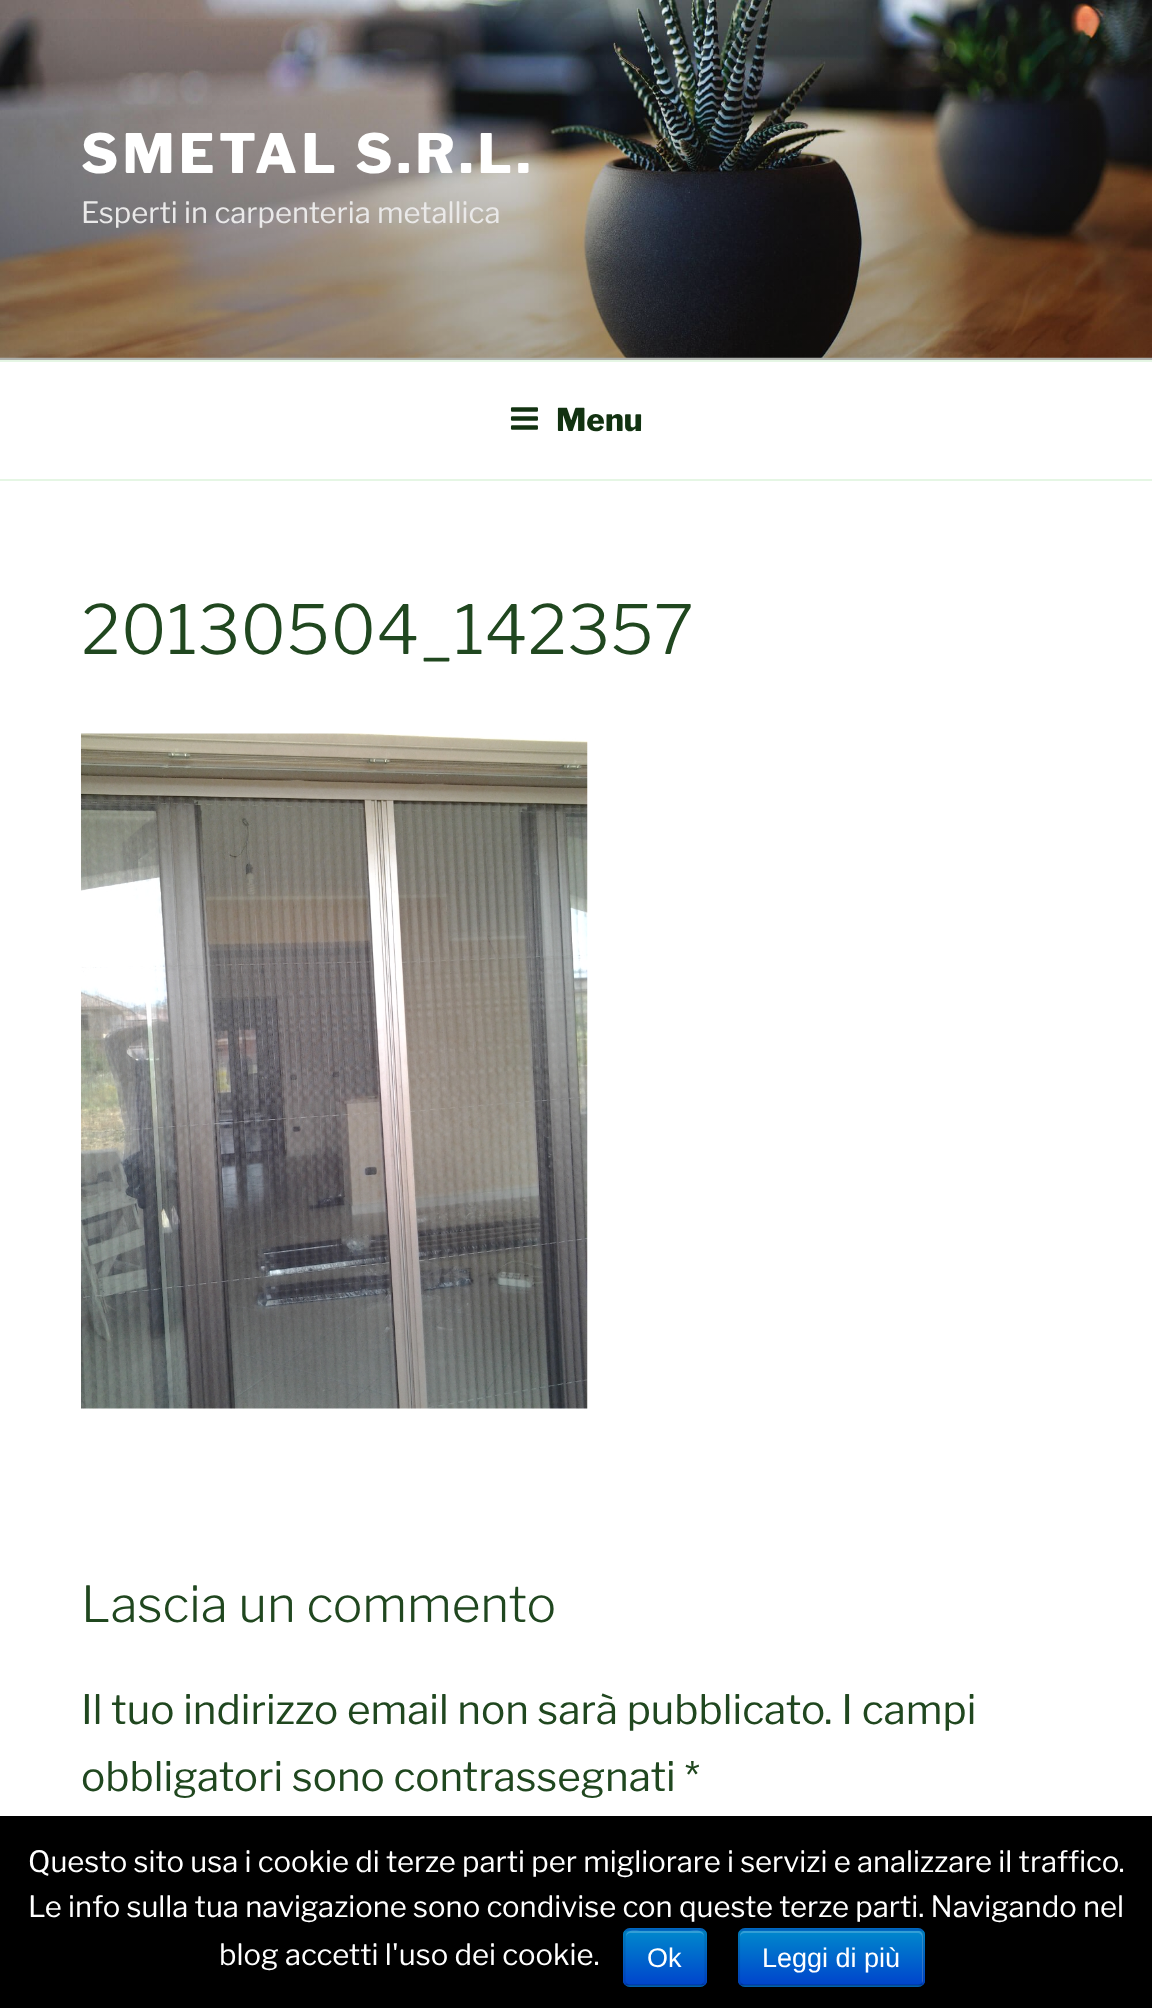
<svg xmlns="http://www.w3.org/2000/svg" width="1152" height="2008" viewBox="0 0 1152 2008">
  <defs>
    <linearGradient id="g1" gradientUnits="userSpaceOnUse" x1="576" y1="0" x2="576" y2="360"><stop offset="0" stop-color="rgb(0,0,0)" stop-opacity="0"/><stop offset="0.75" stop-color="rgb(0,0,0)" stop-opacity="0.3"/><stop offset="1" stop-color="rgb(0,0,0)" stop-opacity="0.3"/></linearGradient>
    <clipPath id="clip1"><rect x="623" y="1928" width="84" height="59" rx="7"/></clipPath>
    <linearGradient id="g2" gradientUnits="userSpaceOnUse" x1="665" y1="1931" x2="665" y2="1985"><stop offset="0" stop-color="rgb(0,136,204)"/><stop offset="1" stop-color="rgb(0,68,204)"/></linearGradient>
    <clipPath id="clip2"><rect x="738" y="1928" width="187" height="59" rx="7"/></clipPath>
    <linearGradient id="g3" gradientUnits="userSpaceOnUse" x1="831" y1="1931" x2="831" y2="1985"><stop offset="0" stop-color="rgb(0,136,204)"/><stop offset="1" stop-color="rgb(0,68,204)"/></linearGradient>
  </defs>
  <rect width="100%" height="100%" fill="rgb(255,255,255)"/>
  <rect x="0" y="357" width="1152" height="3" fill="rgb(248,252,247)"/>
  <image x="0" y="0" width="1152" height="358" href="pic1.png"/>
  <rect x="0" y="19" width="1152" height="341" fill="url(#g1)"/>
  <text x="81" y="173" font-family="Libre Franklin" font-size="54" font-weight="800" letter-spacing="4.25" fill="rgb(255,255,255)">SMETAL S.R.L.</text>
  <text x="81" y="223" font-family="Libre Franklin" font-size="29.25" fill="rgb(234,233,233)">Esperti in carpenteria metallica</text>
  <rect x="0" y="360" width="1152" height="2" fill="rgb(229,246,228)"/>
  <rect x="0" y="479" width="1152" height="2" fill="rgb(229,246,228)"/>
  <image x="510" y="407" width="28" height="23" href="pic2.png"/>
  <text x="556" y="431" font-family="Libre Franklin" font-size="31.5" font-weight="800" fill="rgb(18,50,17)">Menu</text>
  <text x="81" y="654" font-family="Libre Franklin" font-size="67.5" font-weight="300" fill="rgb(32,71,31)">20130504_142357</text>
  <image x="81" y="733" width="507" height="676" href="pic3.png"/>
  <text x="81" y="1622" font-family="Libre Franklin" font-size="49.5" font-weight="300" fill="rgb(32,71,31)">Lascia un commento</text>
  <g font-family="Libre Franklin" font-size="40.5" fill="rgb(32,71,31)">
    <text>
      <tspan x="81" y="1724">Il tuo indirizzo email non sarà pubblicato. I campi</tspan>
      <tspan x="81" y="1791">obbligatori sono contrassegnati *</tspan>
    </text>
  </g>
  <rect x="0" y="1816" width="1152" height="192" fill="rgb(0,0,0)"/>
  <g font-family="Libre Franklin" font-size="29.25" fill="rgb(255,255,255)">
    <text>
      <tspan x="28" y="1872">Questo sito usa i cookie di terze parti per migliorare i servizi e analizzare il traffico.</tspan>
      <tspan x="28" y="1917">Le info sulla tua navigazione sono condivise con queste terze parti. Navigando nel</tspan>
    </text>
    <text x="219" y="1965">blog accetti l'uso dei cookie.</text>
  </g>
  <rect x="623" y="1928" width="84" height="59" rx="7" fill="rgb(0,109,204)"/>
  <g clip-path="url(#clip1)">
    <rect x="623" y="1931" width="84" height="54" fill="url(#g2)"/>
  </g>
  <path d="M630 1933H700C702 1933 704 1935 704 1937C704 1928 693 1931 688 1931H642C637 1931 626 1928 626 1937C626 1935 628 1933 630 1933Z" fill="rgba(255,255,255,0.2)"/>
  <path d="M703.5 1984C702.5 1985 701 1985.5 700 1985.5H630C628.5 1985.5 627 1985 626 1984" fill="none" stroke="rgba(0,0,0,0.25)" stroke-width="2.2"/>
  <path d="M626 1984C625 1983 624.5 1981.5 624.5 1980V1935C624.5 1933.5 625 1932 626 1931C627 1930 628.5 1929.5 630 1929.5H700C701 1929.5 702.5 1930 703.5 1931C705 1932 705.5 1933.5 705.5 1935V1980C705.5 1981.5 705 1983 703.5 1984" fill="none" stroke="rgba(0,0,0,0.1)" stroke-width="2.2"/>
  <text x="647" y="1967" font-family="Liberation Sans" font-size="27" fill="rgb(255,255,255)">Ok</text>
  <rect x="738" y="1928" width="187" height="59" rx="7" fill="rgb(0,109,204)"/>
  <g clip-path="url(#clip2)">
    <rect x="738" y="1931" width="187" height="54" fill="url(#g3)"/>
  </g>
  <path d="M745 1933H918C920 1933 922 1935 922 1937V1983C923 1982 923 1981 923 1980V1936C923 1933 921 1931 918 1931H745C742 1931 740 1933 740 1936V1937C740 1935 742 1933 745 1933Z" fill="rgba(255,255,255,0.2)"/>
  <path d="M922 1984C921 1985 919.5 1985.5 918 1985.5H745C743.5 1985.5 742 1985 741 1984" fill="none" stroke="rgba(0,0,0,0.25)" stroke-width="2.2"/>
  <path d="M741 1984C739.5 1983 739 1981.5 739 1980V1935C739 1933.5 739.5 1932 741 1931C742 1930 743.5 1929.5 745 1929.5H918C919.5 1929.5 921 1930 922 1931C923 1932 923.5 1933.5 923.5 1935V1980C923.5 1981.5 923 1983 922 1984" fill="none" stroke="rgba(0,0,0,0.1)" stroke-width="2.2"/>
  <text x="762" y="1967" font-family="Liberation Sans" font-size="27" fill="rgb(255,255,255)">Leggi di più</text>
</svg>
